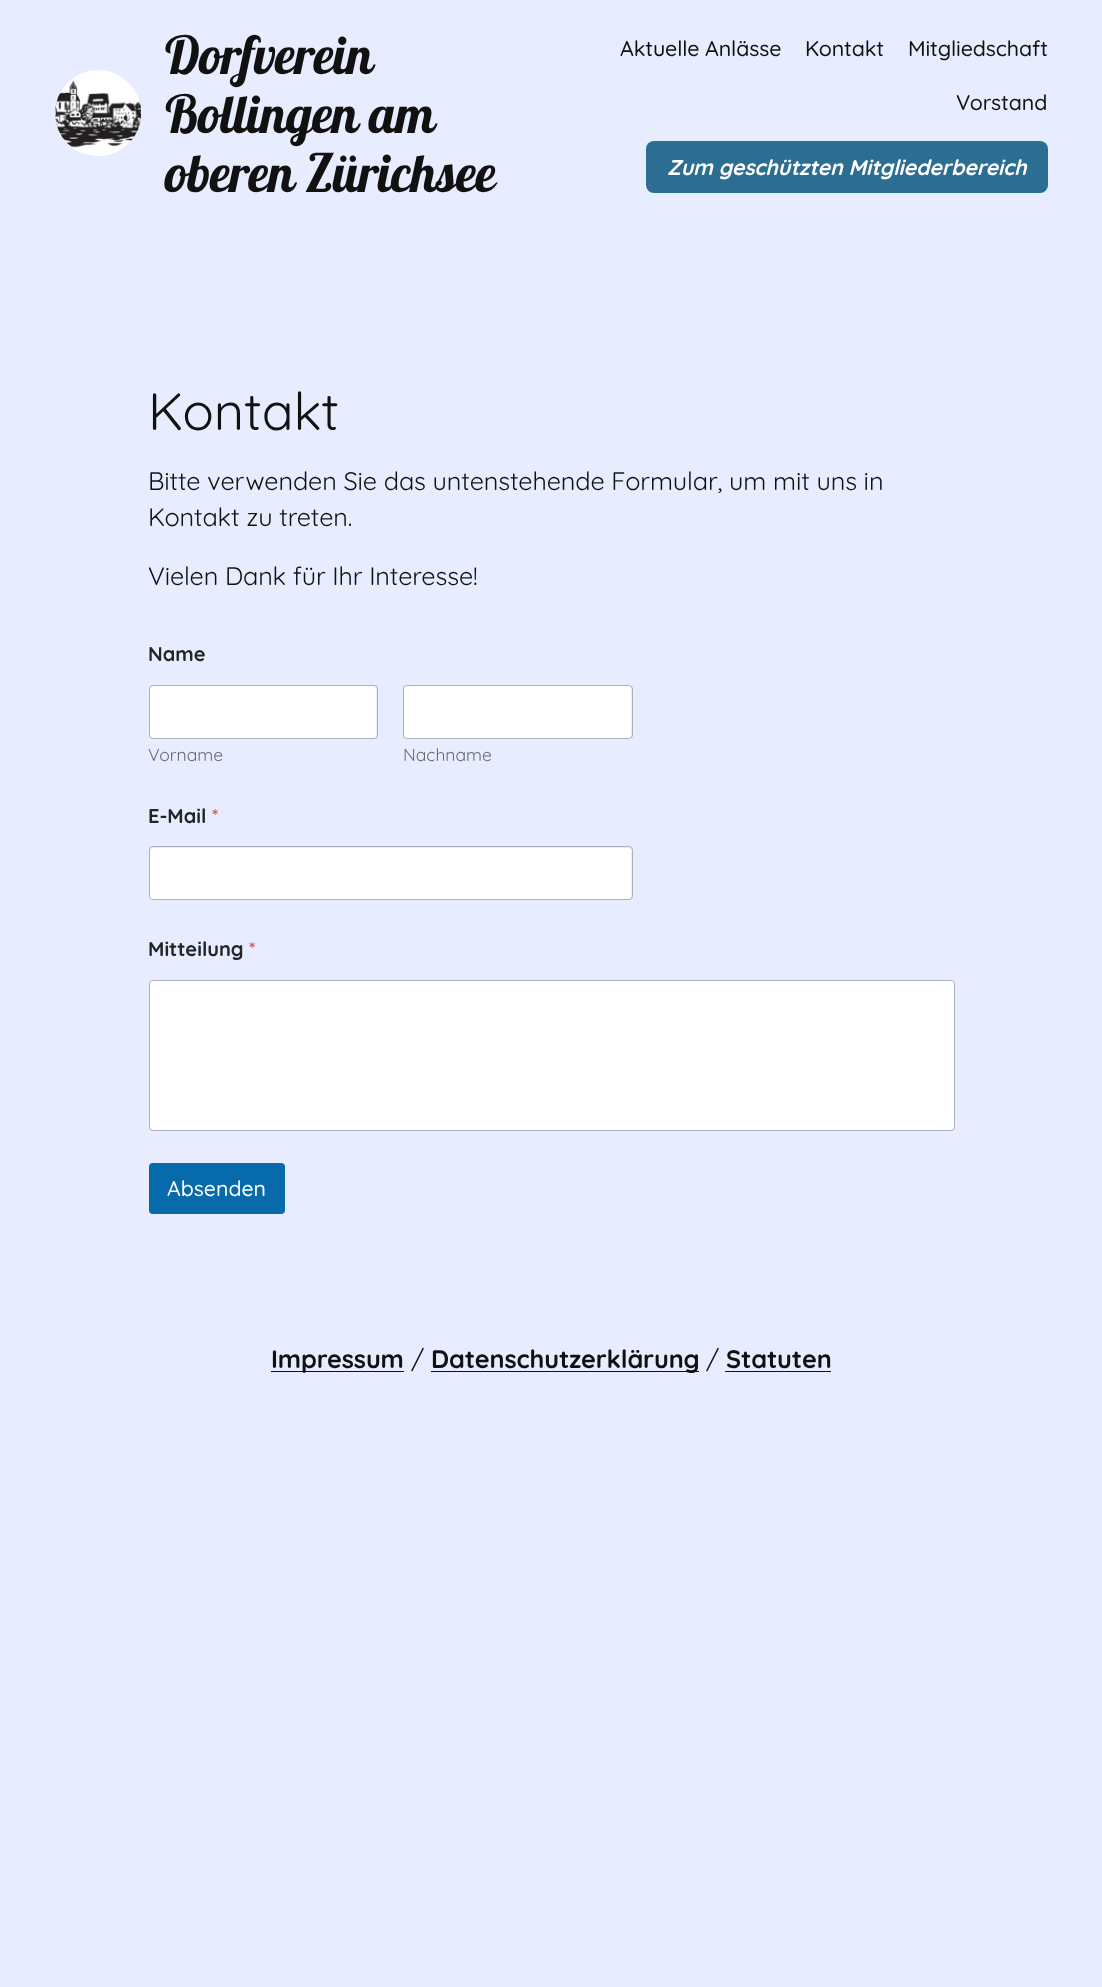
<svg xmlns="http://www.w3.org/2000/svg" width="1102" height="1987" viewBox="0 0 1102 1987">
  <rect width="100%" height="100%" fill="rgb(231,237,254)"/>
  <image x="55" y="70" width="87" height="86" href="pic1.png"/>
  <g font-family="Lobster" font-size="52.5" letter-spacing="-0.6" fill="rgb(17,17,17)">
    <text>
      <tspan x="165" y="74">Dorfverein</tspan>
      <tspan x="165" y="133">Bollingen am</tspan>
      <tspan x="165" y="192">oberen Zürichsee</tspan>
    </text>
  </g>
  <g font-family="Quicksand" font-size="21.4" font-weight="500" letter-spacing="-0.12" fill="rgb(17,17,17)">
    <text x="620" y="56">Aktuelle Anlässe</text>
    <text x="805" y="56">Kontakt</text>
    <text x="908" y="56">Mitgliedschaft</text>
    <text x="956" y="110">Vorstand</text>
  </g>
  <rect x="646" y="141" width="402" height="52" rx="8" fill="rgb(44,110,145)"/>
  <text x="667" y="175" font-family="Quicksand" font-size="21.4" font-weight="bold" font-style="italic" letter-spacing="-0.12" fill="rgb(255,255,255)">Zum geschützten Mitgliederbereich</text>
  <text x="148" y="430" font-family="Quicksand" font-size="52.5" letter-spacing="-0.12" fill="rgb(17,17,17)">Kontakt</text>
  <g font-family="Quicksand" font-size="25.25" letter-spacing="-0.12" fill="rgb(17,17,17)">
    <text>
      <tspan x="148" y="490">Bitte verwenden Sie das untenstehende Formular, um mit uns in</tspan>
      <tspan x="148" y="526">Kontakt zu treten.</tspan>
    </text>
    <text x="148" y="585">Vielen Dank für Ihr Interesse!</text>
  </g>
  <text x="148" y="661" font-family="Quicksand" font-size="20" font-weight="bold" fill="rgb(35,36,38)">Name</text>
  <rect x="150" y="686" width="226" height="52" rx="2.5" fill="rgb(255,255,255)"/>
  <rect x="149.5" y="685.5" width="228" height="53" rx="3.5" fill="none" stroke="rgba(0,0,0,0.25)"/>
  <text x="148" y="761" font-family="Quicksand" font-size="17.5" fill="rgb(104,107,114)">Vorname</text>
  <rect x="404" y="686" width="227" height="52" rx="2.5" fill="rgb(255,255,255)"/>
  <rect x="403.5" y="685.5" width="229" height="53" rx="3.5" fill="none" stroke="rgba(0,0,0,0.25)"/>
  <text x="403" y="761" font-family="Quicksand" font-size="17.5" fill="rgb(104,107,114)">Nachname</text>
  <text x="148" y="823" font-family="Quicksand" font-size="20" font-weight="bold" fill="rgb(35,36,38)">E-Mail</text>
  <text x="212" y="823" font-family="Quicksand" font-size="20" fill="rgb(214,54,55)">*</text>
  <rect x="150" y="848" width="481" height="51" rx="2.5" fill="rgb(255,255,255)"/>
  <rect x="149.5" y="846.5" width="483" height="53" rx="3.5" fill="none" stroke="rgba(0,0,0,0.25)"/>
  <text x="148" y="956" font-family="Quicksand" font-size="20" font-weight="bold" fill="rgb(35,36,38)">Mitteilung</text>
  <text x="249" y="956" font-family="Quicksand" font-size="20" fill="rgb(214,54,55)">*</text>
  <rect x="150" y="981" width="804" height="149" rx="2.5" fill="rgb(255,255,255)"/>
  <rect x="149.5" y="980.5" width="805" height="150" rx="3.5" fill="none" stroke="rgba(0,0,0,0.25)"/>
  <rect x="149" y="1163" width="136" height="51" rx="4" fill="rgb(6,106,171)"/>
  <text x="167" y="1196" font-family="Quicksand" font-size="21.25" font-weight="500" fill="rgb(255,255,255)">Absenden</text>
  <rect x="271" y="1371" width="133" height="1" fill="rgb(17,17,17)"/>
  <text x="271" y="1368" font-family="Quicksand" font-size="25.25" font-weight="bold" letter-spacing="-0.12" fill="rgb(17,17,17)">Impressum</text>
  <text x="411" y="1368" font-family="Quicksand" font-size="25.25" letter-spacing="-0.12" fill="rgb(17,17,17)">/</text>
  <rect x="431" y="1371" width="268" height="1" fill="rgb(17,17,17)"/>
  <text x="431" y="1368" font-family="Quicksand" font-size="25.25" font-weight="bold" letter-spacing="-0.12" fill="rgb(17,17,17)">Datenschutzerklärung</text>
  <text x="706" y="1368" font-family="Quicksand" font-size="25.25" letter-spacing="-0.12" fill="rgb(17,17,17)">/</text>
  <text x="726" y="1368" font-family="Quicksand" font-size="25.25" font-weight="bold" letter-spacing="-0.12" fill="rgb(17,17,17)">Statuten</text>
  <rect x="725" y="1371" width="106" height="1" fill="rgb(17,17,17)"/>
</svg>
